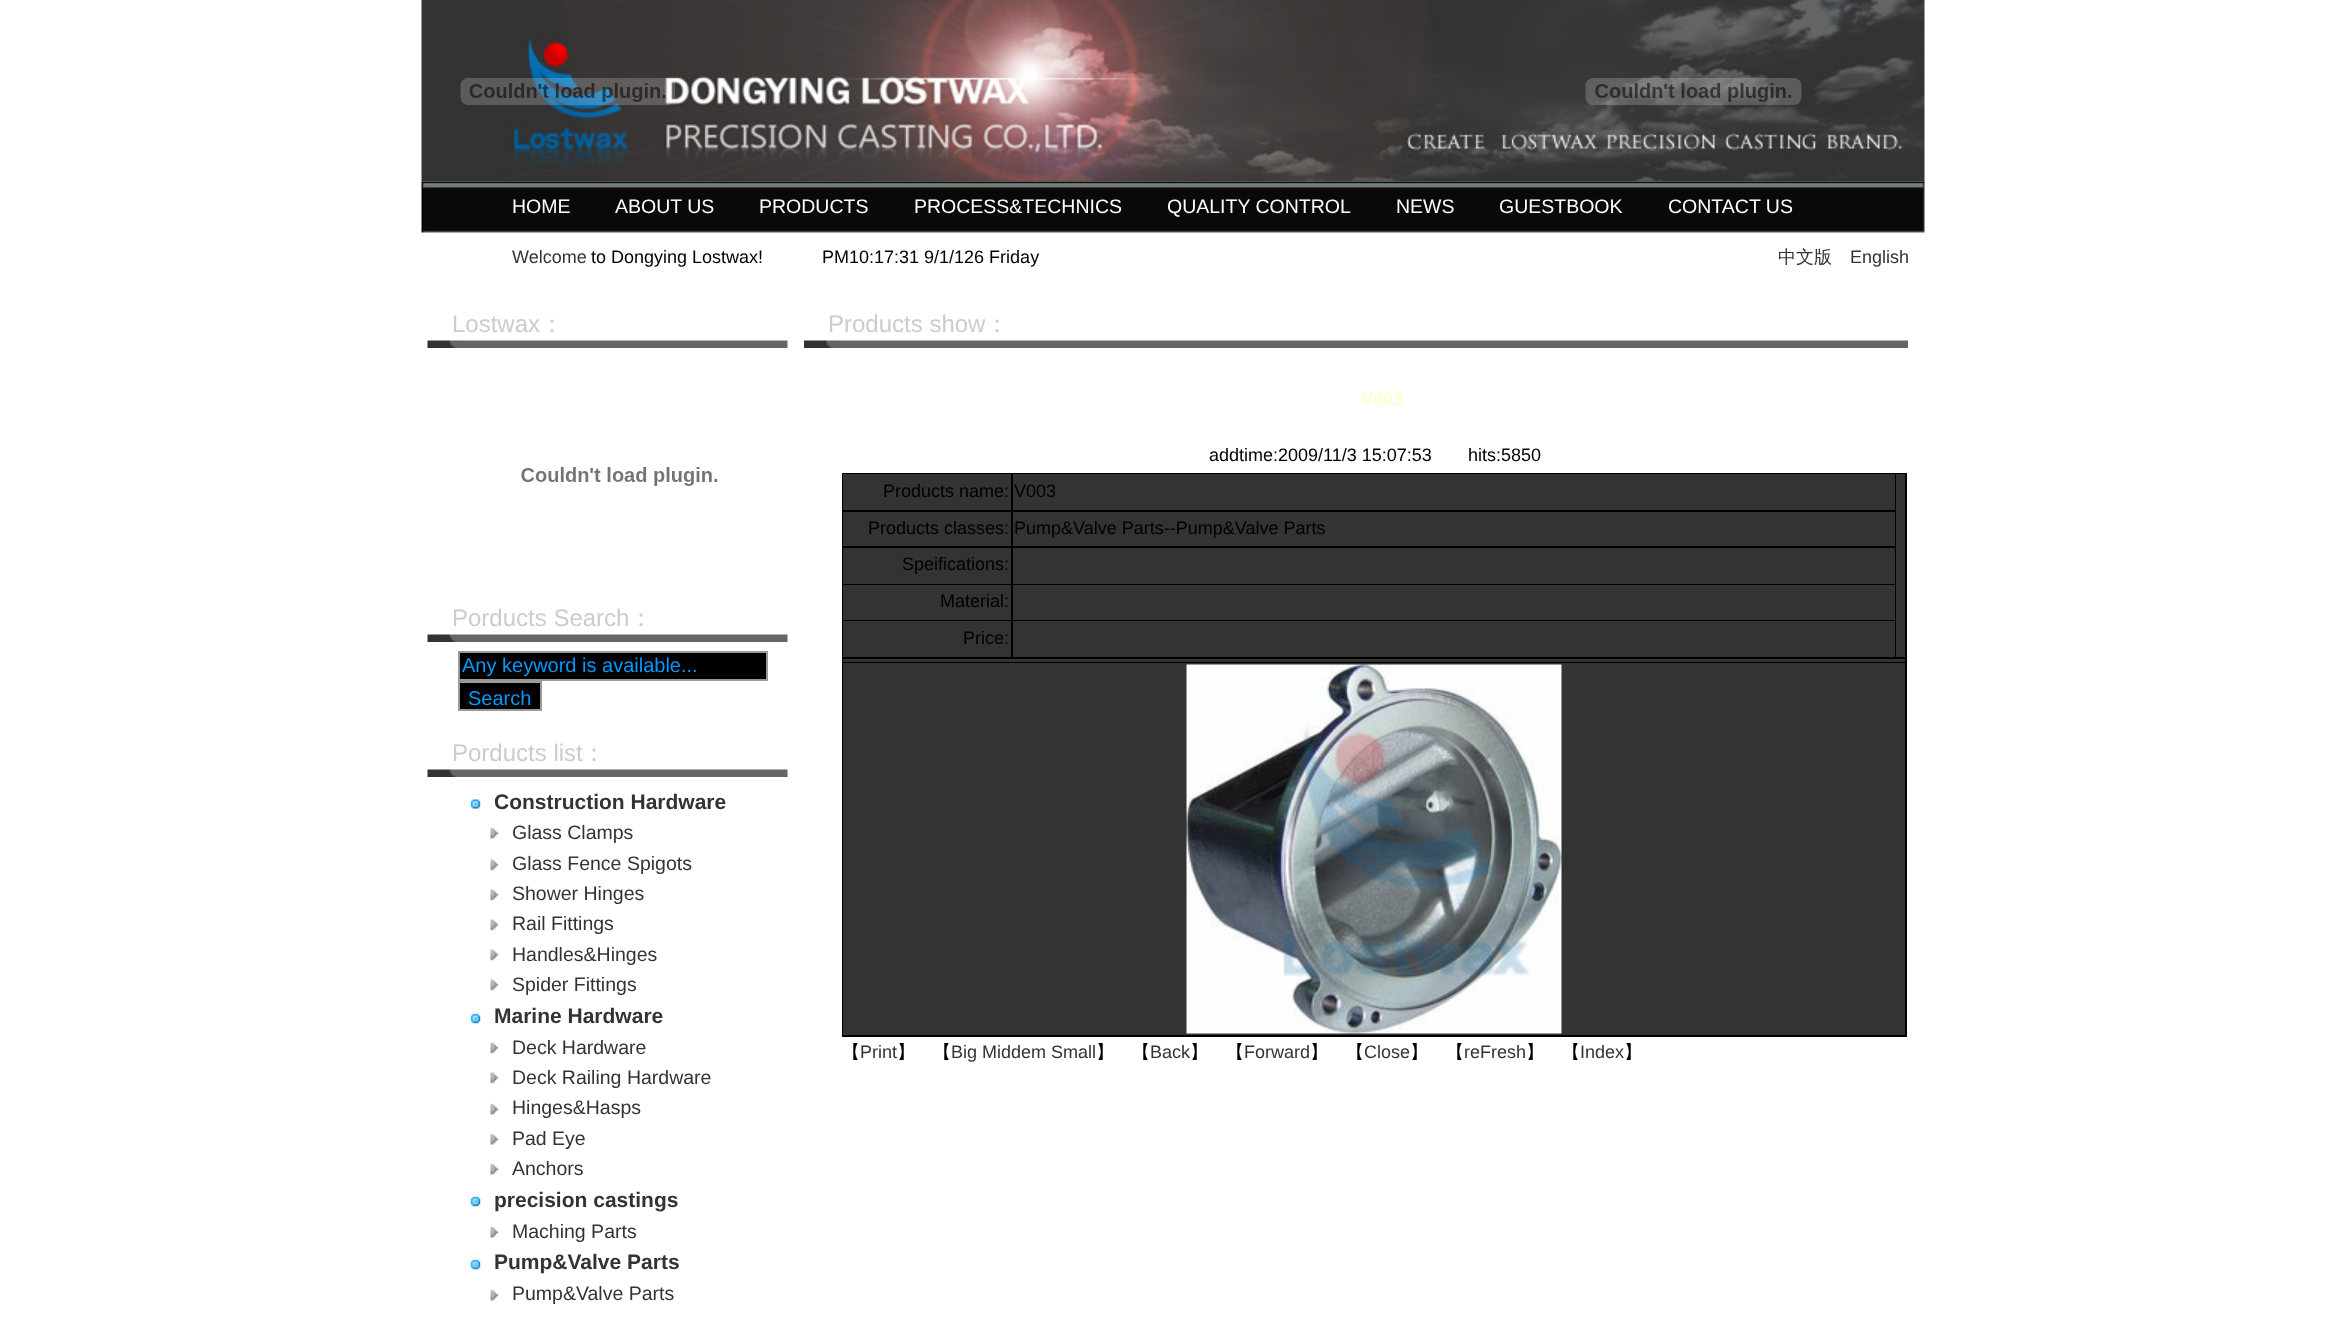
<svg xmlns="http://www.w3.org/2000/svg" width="2345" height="1338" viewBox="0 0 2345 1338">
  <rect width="100%" height="100%" fill="rgb(255,255,255)"/>
  <image x="421" y="0" width="1504" height="182" href="pic1.png"/>
  <image x="460" y="78" width="215" height="27" href="pic2.png"/>
  <image x="1585" y="78" width="217" height="27" href="pic3.png"/>
  <image x="421" y="181" width="1504" height="52" href="pic4.png"/>
  <g font-family="Liberation Sans" font-size="19.5" fill="rgb(255,255,255)">
    <text x="512" y="213">HOME</text>
    <text x="615" y="213">ABOUT US</text>
    <text x="759" y="213">PRODUCTS</text>
    <text x="914" y="213">PROCESS&amp;TECHNICS</text>
    <text x="1167" y="213">QUALITY CONTROL</text>
    <text x="1396" y="213">NEWS</text>
    <text x="1499" y="213">GUESTBOOK</text>
    <text x="1668" y="213">CONTACT US</text>
  </g>
  <text x="512" y="263" font-family="Liberation Sans" font-size="18" fill="rgb(51,51,51)">Welcome</text>
  <g font-family="Liberation Sans" font-size="18" fill="rgb(0,0,0)">
    <text x="591" y="263">to Dongying Lostwax!</text>
    <text x="822" y="263">PM10:17:31 9/1/126 Friday</text>
  </g>
  <text x="1778" y="263" font-family="WenQuanYi Zen Hei" font-size="18" font-weight="500" fill="rgb(51,51,51)">中文版</text>
  <text x="1850" y="263" font-family="Liberation Sans" font-size="18" fill="rgb(51,51,51)">English</text>
  <image x="427" y="340" width="361" height="8" href="pic5.png"/>
  <text x="452" y="332" font-family="Liberation Sans" font-size="24" fill="rgb(204,204,204)">Lostwax</text>
  <text x="540" y="332" font-family="WenQuanYi Zen Hei" font-size="24" font-weight="500" fill="rgb(204,204,204)">：</text>
  <image x="521" y="467" width="197" height="19" href="pic6.png"/>
  <image x="427" y="634" width="361" height="8" href="pic5.png"/>
  <text x="452" y="626" font-family="Liberation Sans" font-size="24" fill="rgb(204,204,204)">Porducts Search</text>
  <text x="629" y="626" font-family="WenQuanYi Zen Hei" font-size="24" font-weight="500" fill="rgb(204,204,204)">：</text>
  <rect x="459" y="652" width="308" height="28" fill="rgb(0,0,0)" stroke="rgb(153,153,153)" stroke-width="2"/>
  <text x="462" y="672" font-family="Liberation Sans" font-size="20" fill="rgb(0,153,255)">Any keyword is available...</text>
  <rect x="459" y="682" width="82" height="28" fill="rgb(0,0,0)" stroke="rgb(153,153,153)" stroke-width="2"/>
  <text x="468" y="705" font-family="Liberation Sans" font-size="20" fill="rgb(0,153,255)">Search</text>
  <image x="427" y="769" width="361" height="8" href="pic5.png"/>
  <text x="452" y="761" font-family="Liberation Sans" font-size="24" fill="rgb(204,204,204)">Porducts list</text>
  <text x="582" y="761" font-family="WenQuanYi Zen Hei" font-size="24" font-weight="500" fill="rgb(204,204,204)">：</text>
  <image x="470" y="799" width="11" height="10" href="pic7.png"/>
  <text x="494" y="809" font-family="Liberation Sans" font-size="21" font-weight="bold" fill="rgb(51,51,51)">Construction Hardware</text>
  <image x="490" y="827" width="9" height="12" href="pic8.png"/>
  <text x="512" y="839" font-family="Liberation Sans" font-size="19.5" fill="rgb(51,51,51)">Glass Clamps</text>
  <image x="490" y="859" width="9" height="12" href="pic9.png"/>
  <text x="512" y="870" font-family="Liberation Sans" font-size="19.5" fill="rgb(51,51,51)">Glass Fence Spigots</text>
  <image x="490" y="889" width="9" height="12" href="pic9.png"/>
  <text x="512" y="900" font-family="Liberation Sans" font-size="19.5" fill="rgb(51,51,51)">Shower Hinges</text>
  <image x="490" y="919" width="9" height="12" href="pic9.png"/>
  <text x="512" y="930" font-family="Liberation Sans" font-size="19.5" fill="rgb(51,51,51)">Rail Fittings</text>
  <image x="490" y="949" width="9" height="12" href="pic9.png"/>
  <text x="512" y="961" font-family="Liberation Sans" font-size="19.5" fill="rgb(51,51,51)">Handles&amp;Hinges</text>
  <image x="490" y="979" width="9" height="12" href="pic9.png"/>
  <text x="512" y="991" font-family="Liberation Sans" font-size="19.5" fill="rgb(51,51,51)">Spider Fittings</text>
  <image x="470" y="1013" width="11" height="11" href="pic10.png"/>
  <text x="494" y="1023" font-family="Liberation Sans" font-size="21" font-weight="bold" fill="rgb(51,51,51)">Marine Hardware</text>
  <image x="490" y="1042" width="9" height="12" href="pic9.png"/>
  <text x="512" y="1054" font-family="Liberation Sans" font-size="19.5" fill="rgb(51,51,51)">Deck Hardware</text>
  <image x="490" y="1072" width="9" height="12" href="pic9.png"/>
  <text x="512" y="1084" font-family="Liberation Sans" font-size="19.5" fill="rgb(51,51,51)">Deck Railing Hardware</text>
  <image x="490" y="1103" width="9" height="12" href="pic8.png"/>
  <text x="512" y="1114" font-family="Liberation Sans" font-size="19.5" fill="rgb(51,51,51)">Hinges&amp;Hasps</text>
  <image x="490" y="1133" width="9" height="12" href="pic8.png"/>
  <text x="512" y="1145" font-family="Liberation Sans" font-size="19.5" fill="rgb(51,51,51)">Pad Eye</text>
  <image x="490" y="1163" width="9" height="12" href="pic8.png"/>
  <text x="512" y="1175" font-family="Liberation Sans" font-size="19.5" fill="rgb(51,51,51)">Anchors</text>
  <image x="470" y="1196" width="11" height="11" href="pic10.png"/>
  <text x="494" y="1207" font-family="Liberation Sans" font-size="21" font-weight="bold" fill="rgb(51,51,51)">precision castings</text>
  <image x="490" y="1226" width="9" height="12" href="pic8.png"/>
  <text x="512" y="1238" font-family="Liberation Sans" font-size="19.5" fill="rgb(51,51,51)">Maching Parts</text>
  <image x="470" y="1259" width="11" height="11" href="pic10.png"/>
  <text x="494" y="1269" font-family="Liberation Sans" font-size="21" font-weight="bold" fill="rgb(51,51,51)">Pump&amp;Valve Parts</text>
  <image x="490" y="1289" width="9" height="12" href="pic8.png"/>
  <text x="512" y="1300" font-family="Liberation Sans" font-size="19.5" fill="rgb(51,51,51)">Pump&amp;Valve Parts</text>
  <image x="804" y="340" width="1104" height="8" href="pic11.png"/>
  <text x="828" y="332" font-family="Liberation Sans" font-size="24" fill="rgb(204,204,204)">Products show</text>
  <text x="985" y="332" font-family="WenQuanYi Zen Hei" font-size="24" font-weight="500" fill="rgb(204,204,204)">：</text>
  <text x="1361" y="405" font-family="Liberation Sans" font-size="18" font-weight="bold" fill="rgb(255,255,204)">V003</text>
  <g font-family="Liberation Sans" font-size="18" fill="rgb(0,0,0)">
    <text x="1209" y="461">addtime:2009/11/3 15:07:53</text>
    <text x="1468" y="461">hits:5850</text>
  </g>
  <rect x="842" y="473" width="1065" height="564" fill="rgb(0,0,0)"/>
  <rect x="843" y="474" width="168" height="36" fill="rgb(51,51,51)"/>
  <text x="883" y="497" font-family="Liberation Sans" font-size="18" fill="rgb(0,0,0)">Products name:</text>
  <rect x="1013" y="474" width="882" height="36" fill="rgb(51,51,51)"/>
  <text x="1014" y="497" font-family="Liberation Sans" font-size="18" fill="rgb(0,0,0)">V003</text>
  <rect x="1896" y="474" width="9" height="183" fill="rgb(51,51,51)"/>
  <rect x="843" y="512" width="168" height="34" fill="rgb(51,51,51)"/>
  <text x="868" y="534" font-family="Liberation Sans" font-size="18" fill="rgb(0,0,0)">Products classes:</text>
  <rect x="1013" y="512" width="882" height="34" fill="rgb(51,51,51)"/>
  <text x="1014" y="534" font-family="Liberation Sans" font-size="18" fill="rgb(0,0,0)">Pump&amp;Valve Parts--Pump&amp;Valve Parts</text>
  <rect x="843" y="548" width="168" height="36" fill="rgb(51,51,51)"/>
  <text x="902" y="570" font-family="Liberation Sans" font-size="18" fill="rgb(0,0,0)">Speifications:</text>
  <rect x="1013" y="548" width="882" height="36" fill="rgb(51,51,51)"/>
  <rect x="843" y="585" width="168" height="35" fill="rgb(51,51,51)"/>
  <text x="940" y="607" font-family="Liberation Sans" font-size="18" fill="rgb(0,0,0)">Material:</text>
  <rect x="1013" y="585" width="882" height="35" fill="rgb(51,51,51)"/>
  <rect x="843" y="621" width="168" height="36" fill="rgb(51,51,51)"/>
  <text x="963" y="644" font-family="Liberation Sans" font-size="18" fill="rgb(0,0,0)">Price:</text>
  <rect x="1013" y="621" width="882" height="36" fill="rgb(51,51,51)"/>
  <rect x="843" y="659" width="1062" height="3" fill="rgb(51,51,51)"/>
  <rect x="843" y="663" width="1062" height="372" fill="rgb(51,51,51)"/>
  <image x="1186" y="664" width="376" height="370" href="pic12.png"/>
  <text x="842" y="1058" font-family="WenQuanYi Zen Hei" font-size="18" font-weight="500" fill="rgb(0,0,0)">【</text>
  <text x="860" y="1058" font-family="Liberation Sans" font-size="18" fill="rgb(51,51,51)">Print</text>
  <text x="897" y="1058" font-family="WenQuanYi Zen Hei" font-size="18" font-weight="500" fill="rgb(0,0,0)">】　【</text>
  <text x="951" y="1058" font-family="Liberation Sans" font-size="18" fill="rgb(51,51,51)">Big Middem Small</text>
  <text x="1096" y="1058" font-family="WenQuanYi Zen Hei" font-size="18" font-weight="500" fill="rgb(0,0,0)">】　【</text>
  <text x="1150" y="1058" font-family="Liberation Sans" font-size="18" fill="rgb(51,51,51)">Back</text>
  <text x="1190" y="1058" font-family="WenQuanYi Zen Hei" font-size="18" font-weight="500" fill="rgb(0,0,0)">】　【</text>
  <text x="1244" y="1058" font-family="Liberation Sans" font-size="18" fill="rgb(51,51,51)">Forward</text>
  <text x="1310" y="1058" font-family="WenQuanYi Zen Hei" font-size="18" font-weight="500" fill="rgb(0,0,0)">】　【</text>
  <text x="1364" y="1058" font-family="Liberation Sans" font-size="18" fill="rgb(51,51,51)">Close</text>
  <text x="1410" y="1058" font-family="WenQuanYi Zen Hei" font-size="18" font-weight="500" fill="rgb(0,0,0)">】　【</text>
  <text x="1464" y="1058" font-family="Liberation Sans" font-size="18" fill="rgb(51,51,51)">reFresh</text>
  <text x="1526" y="1058" font-family="WenQuanYi Zen Hei" font-size="18" font-weight="500" fill="rgb(0,0,0)">】　【</text>
  <text x="1580" y="1058" font-family="Liberation Sans" font-size="18" fill="rgb(51,51,51)">Index</text>
  <text x="1624" y="1058" font-family="WenQuanYi Zen Hei" font-size="18" font-weight="500" fill="rgb(0,0,0)">】</text>
</svg>
